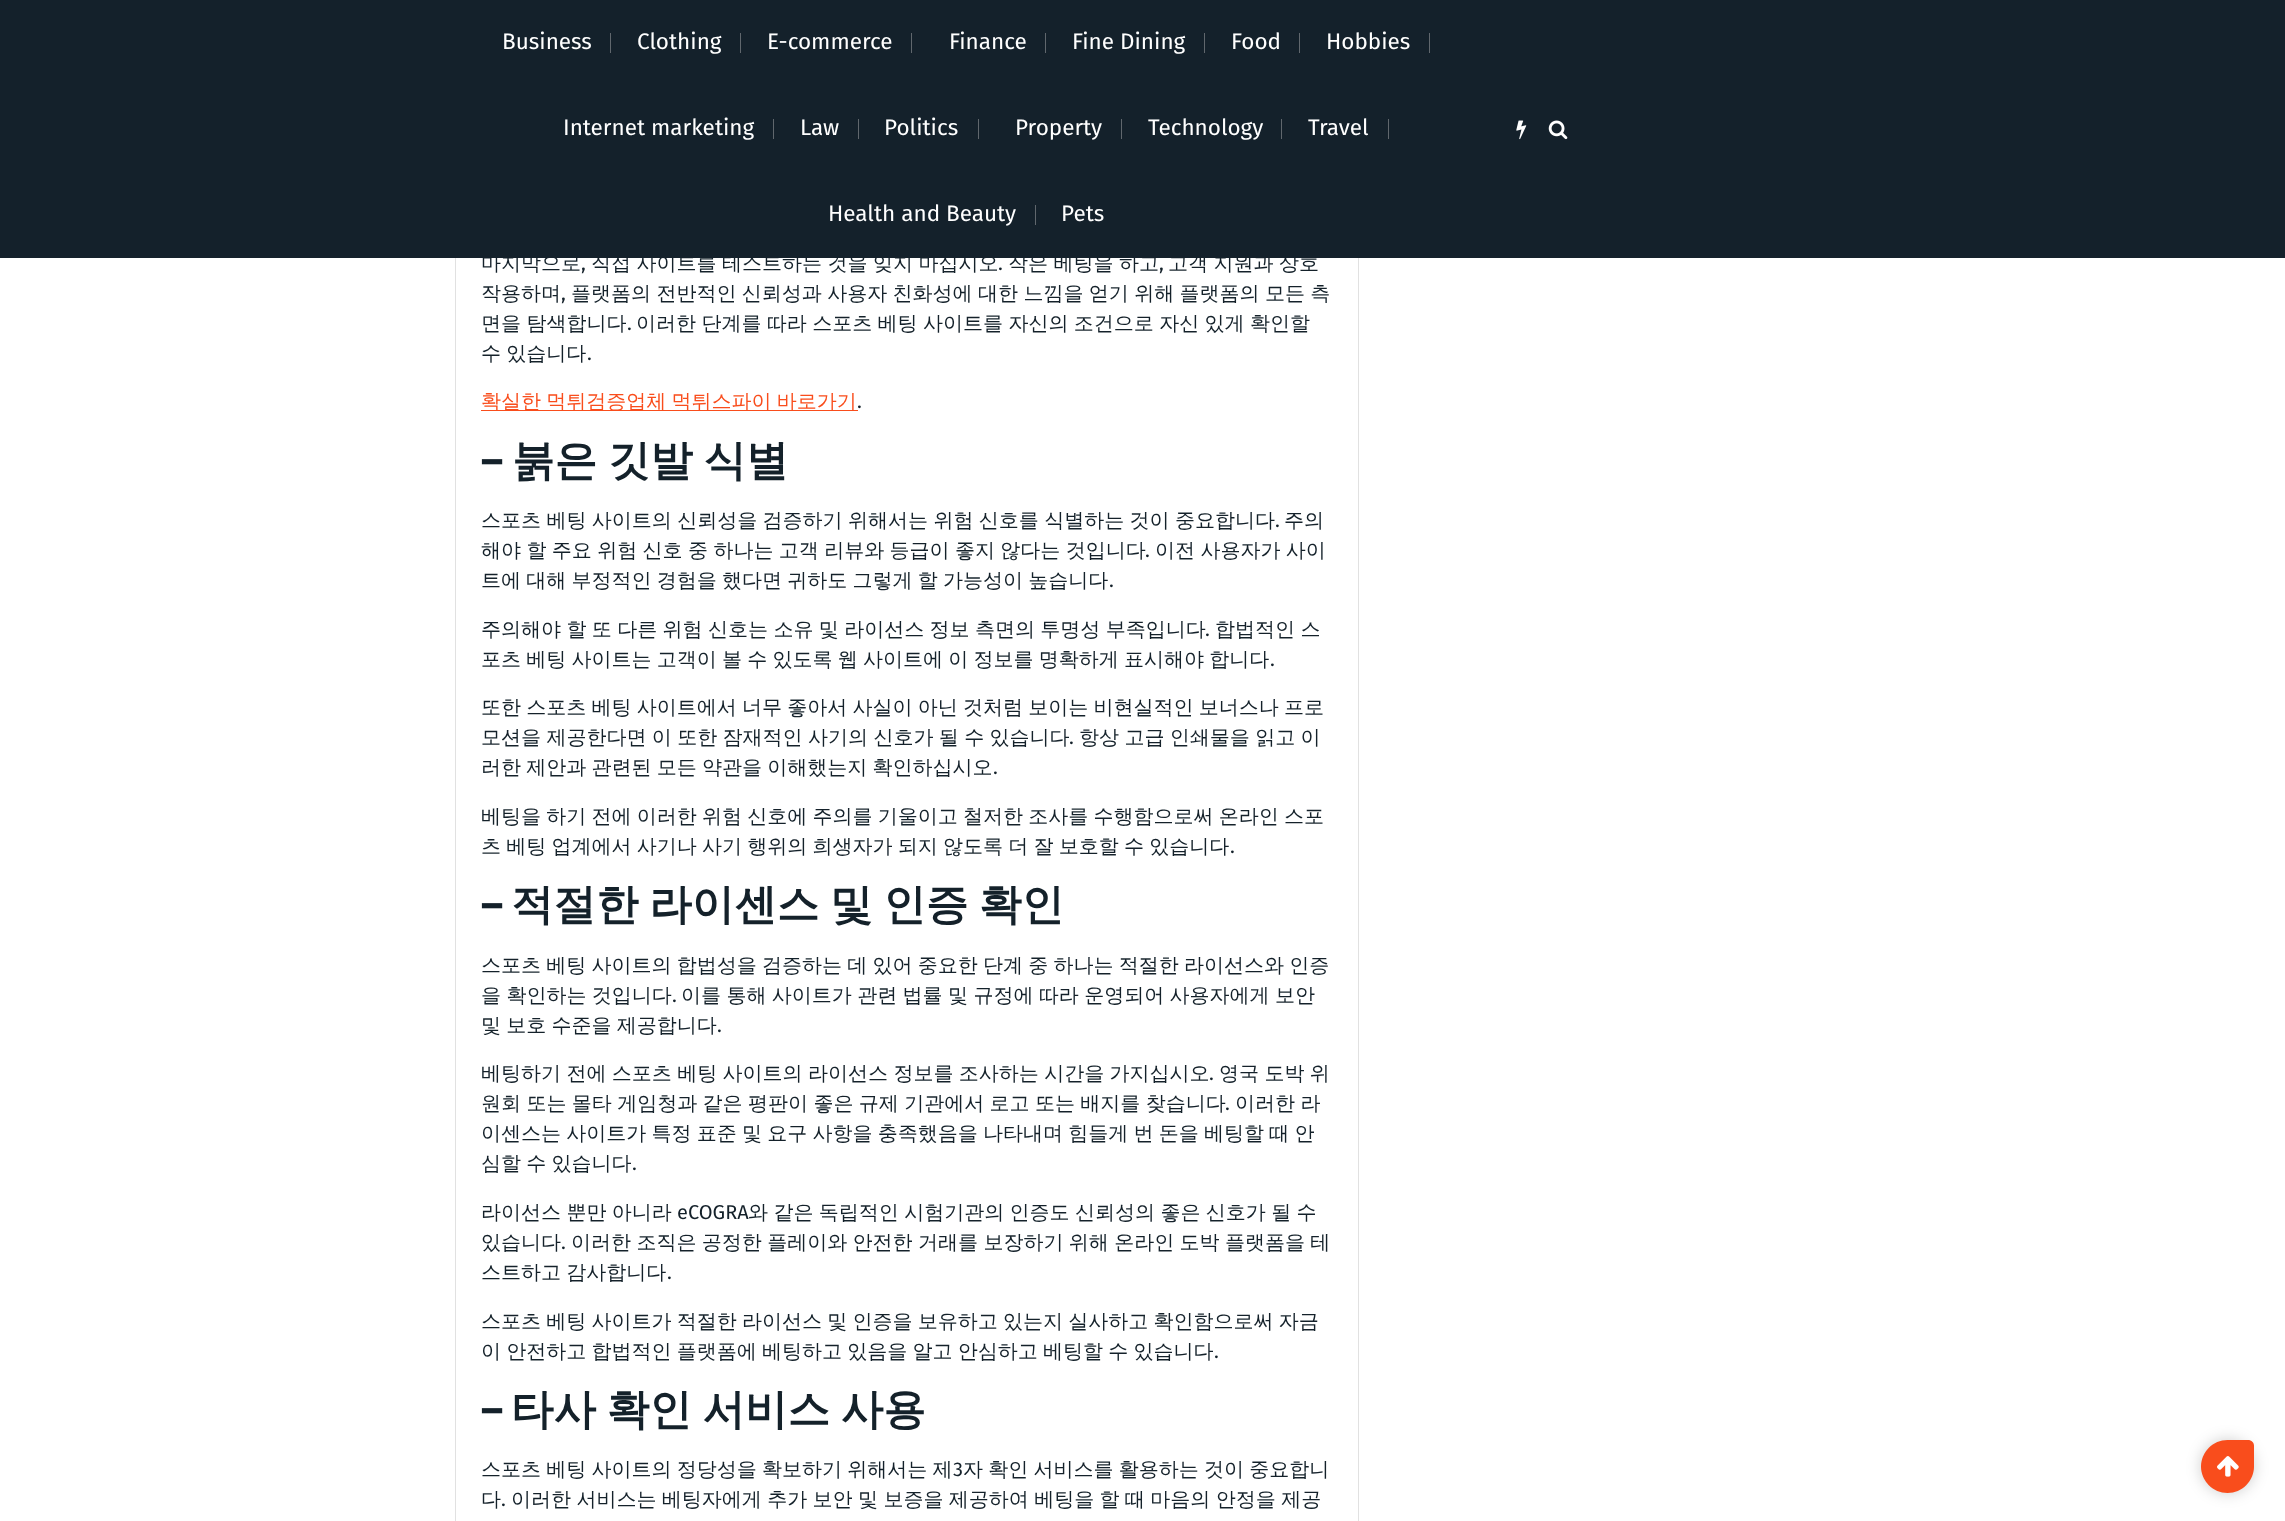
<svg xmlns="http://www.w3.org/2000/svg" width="2285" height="1521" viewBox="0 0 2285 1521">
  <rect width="100%" height="100%" fill="rgb(255,255,255)"/>
  <rect x="455.5" y="-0.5" width="903" height="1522" fill="none" stroke="rgb(225,225,225)"/>
  <g font-family="WenQuanYi Zen Hei" font-size="20" font-weight="500" fill="rgb(20,33,42)">
    <text x="481" y="270">마지막으로</text>
    <text x="591" y="270" word-spacing="-0.5">직접 사이트를 테스트하는 것을 잊지 마십시오</text>
    <text x="1008" y="270" word-spacing="-0.5">작은 베팅을 하고</text>
    <text x="1168" y="270" word-spacing="-0.5">고객 지원과 상호</text>
  </g>
  <rect x="0" y="0" width="2285" height="258" fill="rgb(20,33,43)"/>
  <text x="502" y="49" font-family="Fira Sans" font-size="22.5" fill="rgb(255,255,255)">Business</text>
  <rect x="610" y="33" width="1" height="20" fill="rgb(96,103,109)"/>
  <text x="637" y="49" font-family="Fira Sans" font-size="22.5" fill="rgb(255,255,255)">Clothing</text>
  <rect x="740" y="33" width="1" height="20" fill="rgb(96,103,109)"/>
  <text x="767" y="49" font-family="Fira Sans" font-size="22.5" fill="rgb(255,255,255)">E-commerce</text>
  <rect x="911" y="33" width="1" height="20" fill="rgb(96,103,109)"/>
  <text x="949" y="49" font-family="Fira Sans" font-size="22.5" fill="rgb(255,255,255)">Finance</text>
  <rect x="1045" y="33" width="1" height="20" fill="rgb(96,103,109)"/>
  <text x="1072" y="49" font-family="Fira Sans" font-size="22.5" fill="rgb(255,255,255)">Fine Dining</text>
  <rect x="1204" y="33" width="1" height="20" fill="rgb(96,103,109)"/>
  <text x="1231" y="49" font-family="Fira Sans" font-size="22.5" fill="rgb(255,255,255)">Food</text>
  <rect x="1299" y="33" width="1" height="20" fill="rgb(96,103,109)"/>
  <text x="1326" y="49" font-family="Fira Sans" font-size="22.5" fill="rgb(255,255,255)">Hobbies</text>
  <rect x="1429" y="33" width="1" height="20" fill="rgb(96,103,109)"/>
  <text x="563" y="135" font-family="Fira Sans" font-size="22.5" fill="rgb(255,255,255)">Internet marketing</text>
  <rect x="773" y="119" width="1" height="20" fill="rgb(96,103,109)"/>
  <text x="800" y="135" font-family="Fira Sans" font-size="22.5" fill="rgb(255,255,255)">Law</text>
  <rect x="858" y="119" width="1" height="20" fill="rgb(96,103,109)"/>
  <text x="884" y="135" font-family="Fira Sans" font-size="22.5" fill="rgb(255,255,255)">Politics</text>
  <rect x="978" y="119" width="1" height="20" fill="rgb(96,103,109)"/>
  <text x="1015" y="135" font-family="Fira Sans" font-size="22.5" fill="rgb(255,255,255)">Property</text>
  <rect x="1121" y="119" width="1" height="20" fill="rgb(96,103,109)"/>
  <text x="1148" y="135" font-family="Fira Sans" font-size="22.5" fill="rgb(255,255,255)">Technology</text>
  <rect x="1281" y="119" width="1" height="20" fill="rgb(96,103,109)"/>
  <text x="1308" y="135" font-family="Fira Sans" font-size="22.5" fill="rgb(255,255,255)">Travel</text>
  <rect x="1388" y="119" width="1" height="20" fill="rgb(96,103,109)"/>
  <text x="828" y="221" font-family="Fira Sans" font-size="22.5" fill="rgb(255,255,255)">Health and Beauty</text>
  <rect x="1035" y="205" width="1" height="20" fill="rgb(96,103,109)"/>
  <text x="1061" y="221" font-family="Fira Sans" font-size="22.5" fill="rgb(255,255,255)">Pets</text>
  <image x="1516" y="120" width="11" height="20" href="pic1.png"/>
  <image x="1548" y="120" width="20" height="20" href="pic2.png"/>
  <g font-family="Fira Sans" font-size="20" fill="rgb(20,33,42)">
    <text x="581" y="270">,</text>
    <text x="998" y="270">.</text>
    <text x="1159" y="270">,</text>
  </g>
  <text x="481" y="300" font-family="WenQuanYi Zen Hei" font-size="20" font-weight="500" fill="rgb(20,33,42)">작용하며</text>
  <text x="561" y="300" font-family="Fira Sans" font-size="20" fill="rgb(20,33,42)">,</text>
  <g font-family="WenQuanYi Zen Hei" font-size="20" font-weight="500" fill="rgb(20,33,42)">
    <text x="571" y="300" word-spacing="-0.6">플랫폼의 전반적인 신뢰성과 사용자 친화성에 대한 느낌을 얻기 위해 플랫폼의 모든 측</text>
    <text x="481" y="330" word-spacing="-0.6">면을 탐색합니다</text>
  </g>
  <text x="627" y="330" font-family="Fira Sans" font-size="20" fill="rgb(20,33,42)">.</text>
  <g font-family="WenQuanYi Zen Hei" font-size="20" font-weight="500" fill="rgb(20,33,42)">
    <text x="636" y="330" word-spacing="-0.6">이러한 단계를 따라 스포츠 베팅 사이트를 자신의 조건으로 자신 있게 확인할</text>
    <text x="481" y="360" word-spacing="-0.75">수 있습니다</text>
  </g>
  <text x="587" y="360" font-family="Fira Sans" font-size="20" fill="rgb(20,33,42)">.</text>
  <rect x="481" y="410" width="377" height="1" fill="rgb(249,77,28)"/>
  <text x="481" y="408" word-spacing="-0.75" font-family="WenQuanYi Zen Hei" font-size="20" font-weight="500" fill="rgb(249,77,28)">확실한 먹튀검증업체 먹튀스파이 바로가기</text>
  <text x="857" y="408" font-family="Fira Sans" font-size="20" fill="rgb(20,33,42)">.</text>
  <text x="481" y="475" font-family="Fira Sans" font-size="42.5" font-weight="bold" fill="rgb(20,33,42)">–</text>
  <text x="512" y="475" word-spacing="-2" font-family="WenQuanYi Zen Hei" font-size="42.5" font-weight="bold" fill="rgb(20,33,42)">붉은 깃발 식별</text>
  <text x="481" y="527" word-spacing="-0.6" font-family="WenQuanYi Zen Hei" font-size="20" font-weight="500" fill="rgb(20,33,42)">스포츠 베팅 사이트의 신뢰성을 검증하기 위해서는 위험 신호를 식별하는 것이 중요합니다</text>
  <text x="1275" y="527" font-family="Fira Sans" font-size="20" fill="rgb(20,33,42)">.</text>
  <g font-family="WenQuanYi Zen Hei" font-size="20" font-weight="500" fill="rgb(20,33,42)">
    <text x="1284" y="527">주의</text>
    <text x="481" y="557" word-spacing="-0.6">해야 할 주요 위험 신호 중 하나는 고객 리뷰와 등급이 좋지 않다는 것입니다</text>
  </g>
  <text x="1145" y="557" font-family="Fira Sans" font-size="20" fill="rgb(20,33,42)">.</text>
  <g font-family="WenQuanYi Zen Hei" font-size="20" font-weight="500" fill="rgb(20,33,42)">
    <text x="1155" y="557" word-spacing="-0.6">이전 사용자가 사이</text>
    <text x="481" y="587" word-spacing="-0.75">트에 대해 부정적인 경험을 했다면 귀하도 그렇게 할 가능성이 높습니다</text>
  </g>
  <text x="1109" y="587" font-family="Fira Sans" font-size="20" fill="rgb(20,33,42)">.</text>
  <text x="481" y="636" word-spacing="-0.6" font-family="WenQuanYi Zen Hei" font-size="20" font-weight="500" fill="rgb(20,33,42)">주의해야 할 또 다른 위험 신호는 소유 및 라이선스 정보 측면의 투명성 부족입니다</text>
  <text x="1205" y="636" font-family="Fira Sans" font-size="20" fill="rgb(20,33,42)">.</text>
  <g font-family="WenQuanYi Zen Hei" font-size="20" font-weight="500" fill="rgb(20,33,42)">
    <text x="1215" y="636" word-spacing="-0.6">합법적인 스</text>
    <text x="481" y="666" word-spacing="-0.75">포츠 베팅 사이트는 고객이 볼 수 있도록 웹 사이트에 이 정보를 명확하게 표시해야 합니다</text>
  </g>
  <text x="1270" y="666" font-family="Fira Sans" font-size="20" fill="rgb(20,33,42)">.</text>
  <g font-family="WenQuanYi Zen Hei" font-size="20" font-weight="500" fill="rgb(20,33,42)">
    <text>
      <tspan x="481" y="714" word-spacing="-0.75">또한 스포츠 베팅 사이트에서 너무 좋아서 사실이 아닌 것처럼 보이는 비현실적인 보너스나 프로</tspan>
      <tspan x="481" y="744" word-spacing="-0.6">모션을 제공한다면 이 또한 잠재적인 사기의 신호가 될 수 있습니다</tspan>
    </text>
  </g>
  <text x="1069" y="744" font-family="Fira Sans" font-size="20" fill="rgb(20,33,42)">.</text>
  <g font-family="WenQuanYi Zen Hei" font-size="20" font-weight="500" fill="rgb(20,33,42)">
    <text x="1079" y="744" word-spacing="-0.6">항상 고급 인쇄물을 읽고 이</text>
    <text x="481" y="774" word-spacing="-0.75">러한 제안과 관련된 모든 약관을 이해했는지 확인하십시오</text>
  </g>
  <text x="993" y="774" font-family="Fira Sans" font-size="20" fill="rgb(20,33,42)">.</text>
  <g font-family="WenQuanYi Zen Hei" font-size="20" font-weight="500" fill="rgb(20,33,42)">
    <text>
      <tspan x="481" y="823" word-spacing="-0.75">베팅을 하기 전에 이러한 위험 신호에 주의를 기울이고 철저한 조사를 수행함으로써 온라인 스포</tspan>
      <tspan x="481" y="853" word-spacing="-0.75">츠 베팅 업계에서 사기나 사기 행위의 희생자가 되지 않도록 더 잘 보호할 수 있습니다</tspan>
    </text>
  </g>
  <text x="1230" y="853" font-family="Fira Sans" font-size="20" fill="rgb(20,33,42)">.</text>
  <text x="481" y="919" font-family="Fira Sans" font-size="42.5" font-weight="bold" fill="rgb(20,33,42)">–</text>
  <text x="511" y="919" word-spacing="-2" font-family="WenQuanYi Zen Hei" font-size="42.5" font-weight="bold" fill="rgb(20,33,42)">적절한 라이센스 및 인증 확인</text>
  <g font-family="WenQuanYi Zen Hei" font-size="20" font-weight="500" fill="rgb(20,33,42)">
    <text>
      <tspan x="481" y="972" word-spacing="-0.75">스포츠 베팅 사이트의 합법성을 검증하는 데 있어 중요한 단계 중 하나는 적절한 라이선스와 인증</tspan>
      <tspan x="481" y="1002" word-spacing="-0.6">을 확인하는 것입니다</tspan>
    </text>
  </g>
  <text x="672" y="1002" font-family="Fira Sans" font-size="20" fill="rgb(20,33,42)">.</text>
  <g font-family="WenQuanYi Zen Hei" font-size="20" font-weight="500" fill="rgb(20,33,42)">
    <text x="681" y="1002" word-spacing="-0.6">이를 통해 사이트가 관련 법률 및 규정에 따라 운영되어 사용자에게 보안</text>
    <text x="481" y="1032" word-spacing="-0.75">및 보호 수준을 제공합니다</text>
  </g>
  <text x="717" y="1032" font-family="Fira Sans" font-size="20" fill="rgb(20,33,42)">.</text>
  <text x="481" y="1080" word-spacing="-0.6" font-family="WenQuanYi Zen Hei" font-size="20" font-weight="500" fill="rgb(20,33,42)">베팅하기 전에 스포츠 베팅 사이트의 라이선스 정보를 조사하는 시간을 가지십시오</text>
  <text x="1209" y="1080" font-family="Fira Sans" font-size="20" fill="rgb(20,33,42)">.</text>
  <g font-family="WenQuanYi Zen Hei" font-size="20" font-weight="500" fill="rgb(20,33,42)">
    <text x="1219" y="1080" word-spacing="-0.6">영국 도박 위</text>
    <text x="481" y="1110" word-spacing="-0.6">원회 또는 몰타 게임청과 같은 평판이 좋은 규제 기관에서 로고 또는 배지를 찾습니다</text>
  </g>
  <text x="1225" y="1110" font-family="Fira Sans" font-size="20" fill="rgb(20,33,42)">.</text>
  <g font-family="WenQuanYi Zen Hei" font-size="20" font-weight="500" fill="rgb(20,33,42)">
    <text x="1235" y="1110" word-spacing="-0.6">이러한 라</text>
    <text>
      <tspan x="481" y="1140" word-spacing="-0.75">이센스는 사이트가 특정 표준 및 요구 사항을 충족했음을 나타내며 힘들게 번 돈을 베팅할 때 안</tspan>
      <tspan x="481" y="1170" word-spacing="-0.75">심할 수 있습니다</tspan>
    </text>
  </g>
  <text x="632" y="1170" font-family="Fira Sans" font-size="20" fill="rgb(20,33,42)">.</text>
  <text x="481" y="1219" word-spacing="-0.6" font-family="WenQuanYi Zen Hei" font-size="20" font-weight="500" fill="rgb(20,33,42)">라이선스 뿐만 아니라</text>
  <text x="677" y="1219" font-family="Fira Sans" font-size="20" fill="rgb(20,33,42)">eCOGRA</text>
  <g font-family="WenQuanYi Zen Hei" font-size="20" font-weight="500" fill="rgb(20,33,42)">
    <text x="748" y="1219" word-spacing="-0.6">와 같은 독립적인 시험기관의 인증도 신뢰성의 좋은 신호가 될 수</text>
    <text x="481" y="1249">있습니다</text>
  </g>
  <text x="561" y="1249" font-family="Fira Sans" font-size="20" fill="rgb(20,33,42)">.</text>
  <g font-family="WenQuanYi Zen Hei" font-size="20" font-weight="500" fill="rgb(20,33,42)">
    <text x="571" y="1249" word-spacing="-0.6">이러한 조직은 공정한 플레이와 안전한 거래를 보장하기 위해 온라인 도박 플랫폼을 테</text>
    <text x="481" y="1279" word-spacing="-0.75">스트하고 감사합니다</text>
  </g>
  <text x="667" y="1279" font-family="Fira Sans" font-size="20" fill="rgb(20,33,42)">.</text>
  <g font-family="WenQuanYi Zen Hei" font-size="20" font-weight="500" fill="rgb(20,33,42)">
    <text>
      <tspan x="481" y="1328" word-spacing="-0.75">스포츠 베팅 사이트가 적절한 라이선스 및 인증을 보유하고 있는지 실사하고 확인함으로써 자금</tspan>
      <tspan x="481" y="1358" word-spacing="-0.75">이 안전하고 합법적인 플랫폼에 베팅하고 있음을 알고 안심하고 베팅할 수 있습니다</tspan>
    </text>
  </g>
  <text x="1214" y="1358" font-family="Fira Sans" font-size="20" fill="rgb(20,33,42)">.</text>
  <text x="481" y="1424" font-family="Fira Sans" font-size="42.5" font-weight="bold" fill="rgb(20,33,42)">–</text>
  <text x="511" y="1424" word-spacing="-2" font-family="WenQuanYi Zen Hei" font-size="42.5" font-weight="bold" fill="rgb(20,33,42)">타사 확인 서비스 사용</text>
  <text x="481" y="1476" word-spacing="-0.75" font-family="WenQuanYi Zen Hei" font-size="20" font-weight="500" fill="rgb(20,33,42)">스포츠 베팅 사이트의 정당성을 확보하기 위해서는 제</text>
  <text x="953" y="1476" font-family="Fira Sans" font-size="20" fill="rgb(20,33,42)">3</text>
  <g font-family="WenQuanYi Zen Hei" font-size="20" font-weight="500" fill="rgb(20,33,42)">
    <text x="963" y="1476" word-spacing="-0.75">자 확인 서비스를 활용하는 것이 중요합니</text>
    <text x="481" y="1506">다</text>
  </g>
  <text x="501" y="1506" font-family="Fira Sans" font-size="20" fill="rgb(20,33,42)">.</text>
  <text x="511" y="1506" word-spacing="-0.6" font-family="WenQuanYi Zen Hei" font-size="20" font-weight="500" fill="rgb(20,33,42)">이러한 서비스는 베팅자에게 추가 보안 및 보증을 제공하여 베팅을 할 때 마음의 안정을 제공</text>
  <rect x="2201" y="1440" width="53" height="53" rx="26.5" fill="rgba(0,0,0,0.2)" filter="blur(7.5px)"/>
  <path d="M2227.5 1440H2248C2251.5 1440 2254 1442.5 2254 1446V1466.5C2254 1481 2242 1493 2227.5 1493C2213 1493 2201 1481 2201 1466.5C2201 1452 2213 1440 2227.5 1440Z" fill="rgb(249,77,28)"/>
  <image x="2217" y="1456" width="22" height="21" href="pic3.png"/>
</svg>
